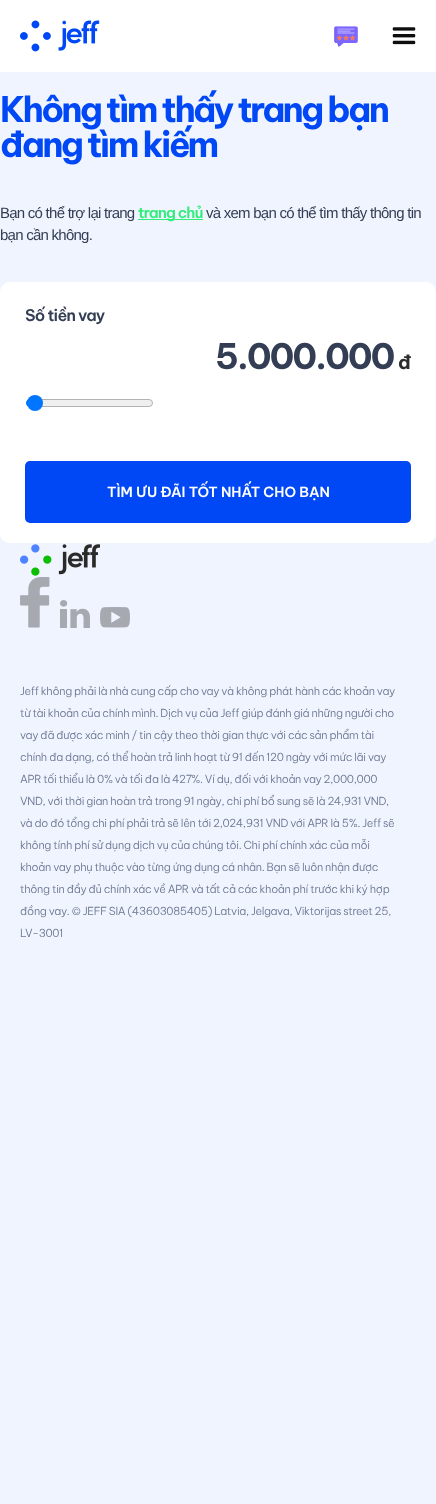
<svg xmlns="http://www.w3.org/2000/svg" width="436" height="1504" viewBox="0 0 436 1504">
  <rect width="100%" height="100%" fill="rgb(240,244,254)"/>
  <rect x="0" y="0" width="436" height="72" fill="rgb(255,255,255)"/>
  <image x="20" y="20" width="80" height="32" href="pic1.png"/>
  <image x="334" y="26" width="24" height="21" href="pic2.png"/>
  <image x="392" y="27" width="24" height="18" href="pic3.png"/>
  <g font-family="Be Vietnam Pro" font-size="35" font-weight="bold" letter-spacing="-2.45" fill="rgb(0,71,245)">
    <text>
      <tspan x="0" y="122">Không tìm thấy trang bạn</tspan>
      <tspan x="0" y="157">đang tìm kiếm</tspan>
    </text>
  </g>
  <text x="0" y="218" font-family="Liberation Sans" font-size="15" letter-spacing="-0.75" fill="rgb(51,61,84)">Bạn có thể trợ lại trang</text>
  <rect x="138" y="219" width="65" height="1" fill="rgb(47,236,123)"/>
  <text x="138" y="218" font-family="Be Vietnam Pro" font-size="15" font-weight="600" letter-spacing="-0.75" fill="rgb(47,236,123)">trang chủ</text>
  <g font-family="Liberation Sans" font-size="15" letter-spacing="-0.75" fill="rgb(51,61,84)">
    <text x="206" y="218">và xem bạn có thể tìm thấy thông tin</text>
    <text x="0" y="240">bạn cần không.</text>
  </g>
  <rect x="0" y="282" width="436" height="261" rx="10" fill="rgb(255,255,255)"/>
  <text x="25" y="321" font-family="Be Vietnam Pro" font-size="16" font-weight="600" letter-spacing="-0.75" fill="rgb(51,61,84)">Số tiền vay</text>
  <text x="215" y="369" font-family="Be Vietnam Pro" font-size="35" font-weight="bold" letter-spacing="-1.75" fill="rgb(51,61,84)">5.000.000</text>
  <text x="398" y="369" font-family="Be Vietnam Pro" font-size="19" font-weight="bold" letter-spacing="-0.32" fill="rgb(45,45,45)">đ</text>
  <rect x="26.5" y="399.5" width="126" height="7" rx="3.5" fill="rgb(239,239,239)" stroke="rgb(178,178,178)"/>
  <path d="M30 399H35V407H30C28 407 26 405 26 403C26 401 28 399 30 399Z" fill="rgb(0,117,255)"/>
  <circle cx="35" cy="403" r="8" fill="rgb(0,117,255)"/>
  <path d="M0 441H436V533C436 538.5 431.5 543 426 543H10C4.5 543 0 538.5 0 533Z" fill="rgb(255,255,255)"/>
  <rect x="25" y="461" width="386" height="62" rx="5" fill="rgb(0,71,245)"/>
  <text x="107" y="497" font-family="Be Vietnam Pro" font-size="14" font-weight="600" fill="rgb(255,255,255)">TÌM ƯU ĐÃI TỐT NHẤT CHO BẠN</text>
  <image x="20" y="544" width="80" height="32" href="pic4.png"/>
  <image x="20" y="577" width="30" height="51" href="pic5.png"/>
  <image x="60" y="600" width="30" height="28" href="pic6.png"/>
  <image x="100" y="607" width="30" height="21" href="pic7.png"/>
  <g font-family="Be Vietnam Pro" font-size="11" font-weight="300" letter-spacing="-0.32" fill="rgb(108,119,147)">
    <text x="20" y="695">Jeff không phải là nhà cung cấp cho vay và không phát hành các khoản vay</text>
    <text x="20" y="717">từ tài khoản của chính mình. Dịch vụ của Jeff giúp đánh giá những người cho</text>
    <text x="20" y="739">vay đã được xác minh / tin cậy theo thời gian thực với các sản phẩm tài</text>
    <text x="20" y="761">chính đa dạng, có thể hoàn trả linh hoạt từ 91 đến 120 ngày với mức lãi vay</text>
    <text x="20" y="783">APR tối thiểu là 0% và tối đa là 427%. Ví dụ, đối với khoản vay 2,000,000</text>
    <text x="20" y="805">VND, với thời gian hoàn trả trong 91 ngày, chi phí bổ sung sẽ là 24,931 VND,</text>
    <text x="20" y="827">và do đó tổng chi phí phải trả sẽ lên tới 2,024,931 VND với APR là 5%. Jeff sẽ</text>
    <text x="20" y="849">không tính phí sử dụng dịch vụ của chúng tôi. Chi phí chính xác của mỗi</text>
    <text x="20" y="871">khoản vay phụ thuộc vào từng ứng dụng cá nhân. Bạn sẽ luôn nhận được</text>
    <text x="20" y="893">thông tin đầy đủ chính xác về APR và tất cả các khoản phí trước khi ký hợp</text>
    <text x="20" y="915">đồng vay. © JEFF SIA (43603085405) Latvia, Jelgava, Viktorijas street 25,</text>
    <text x="20" y="937">LV-3001</text>
  </g>
</svg>
